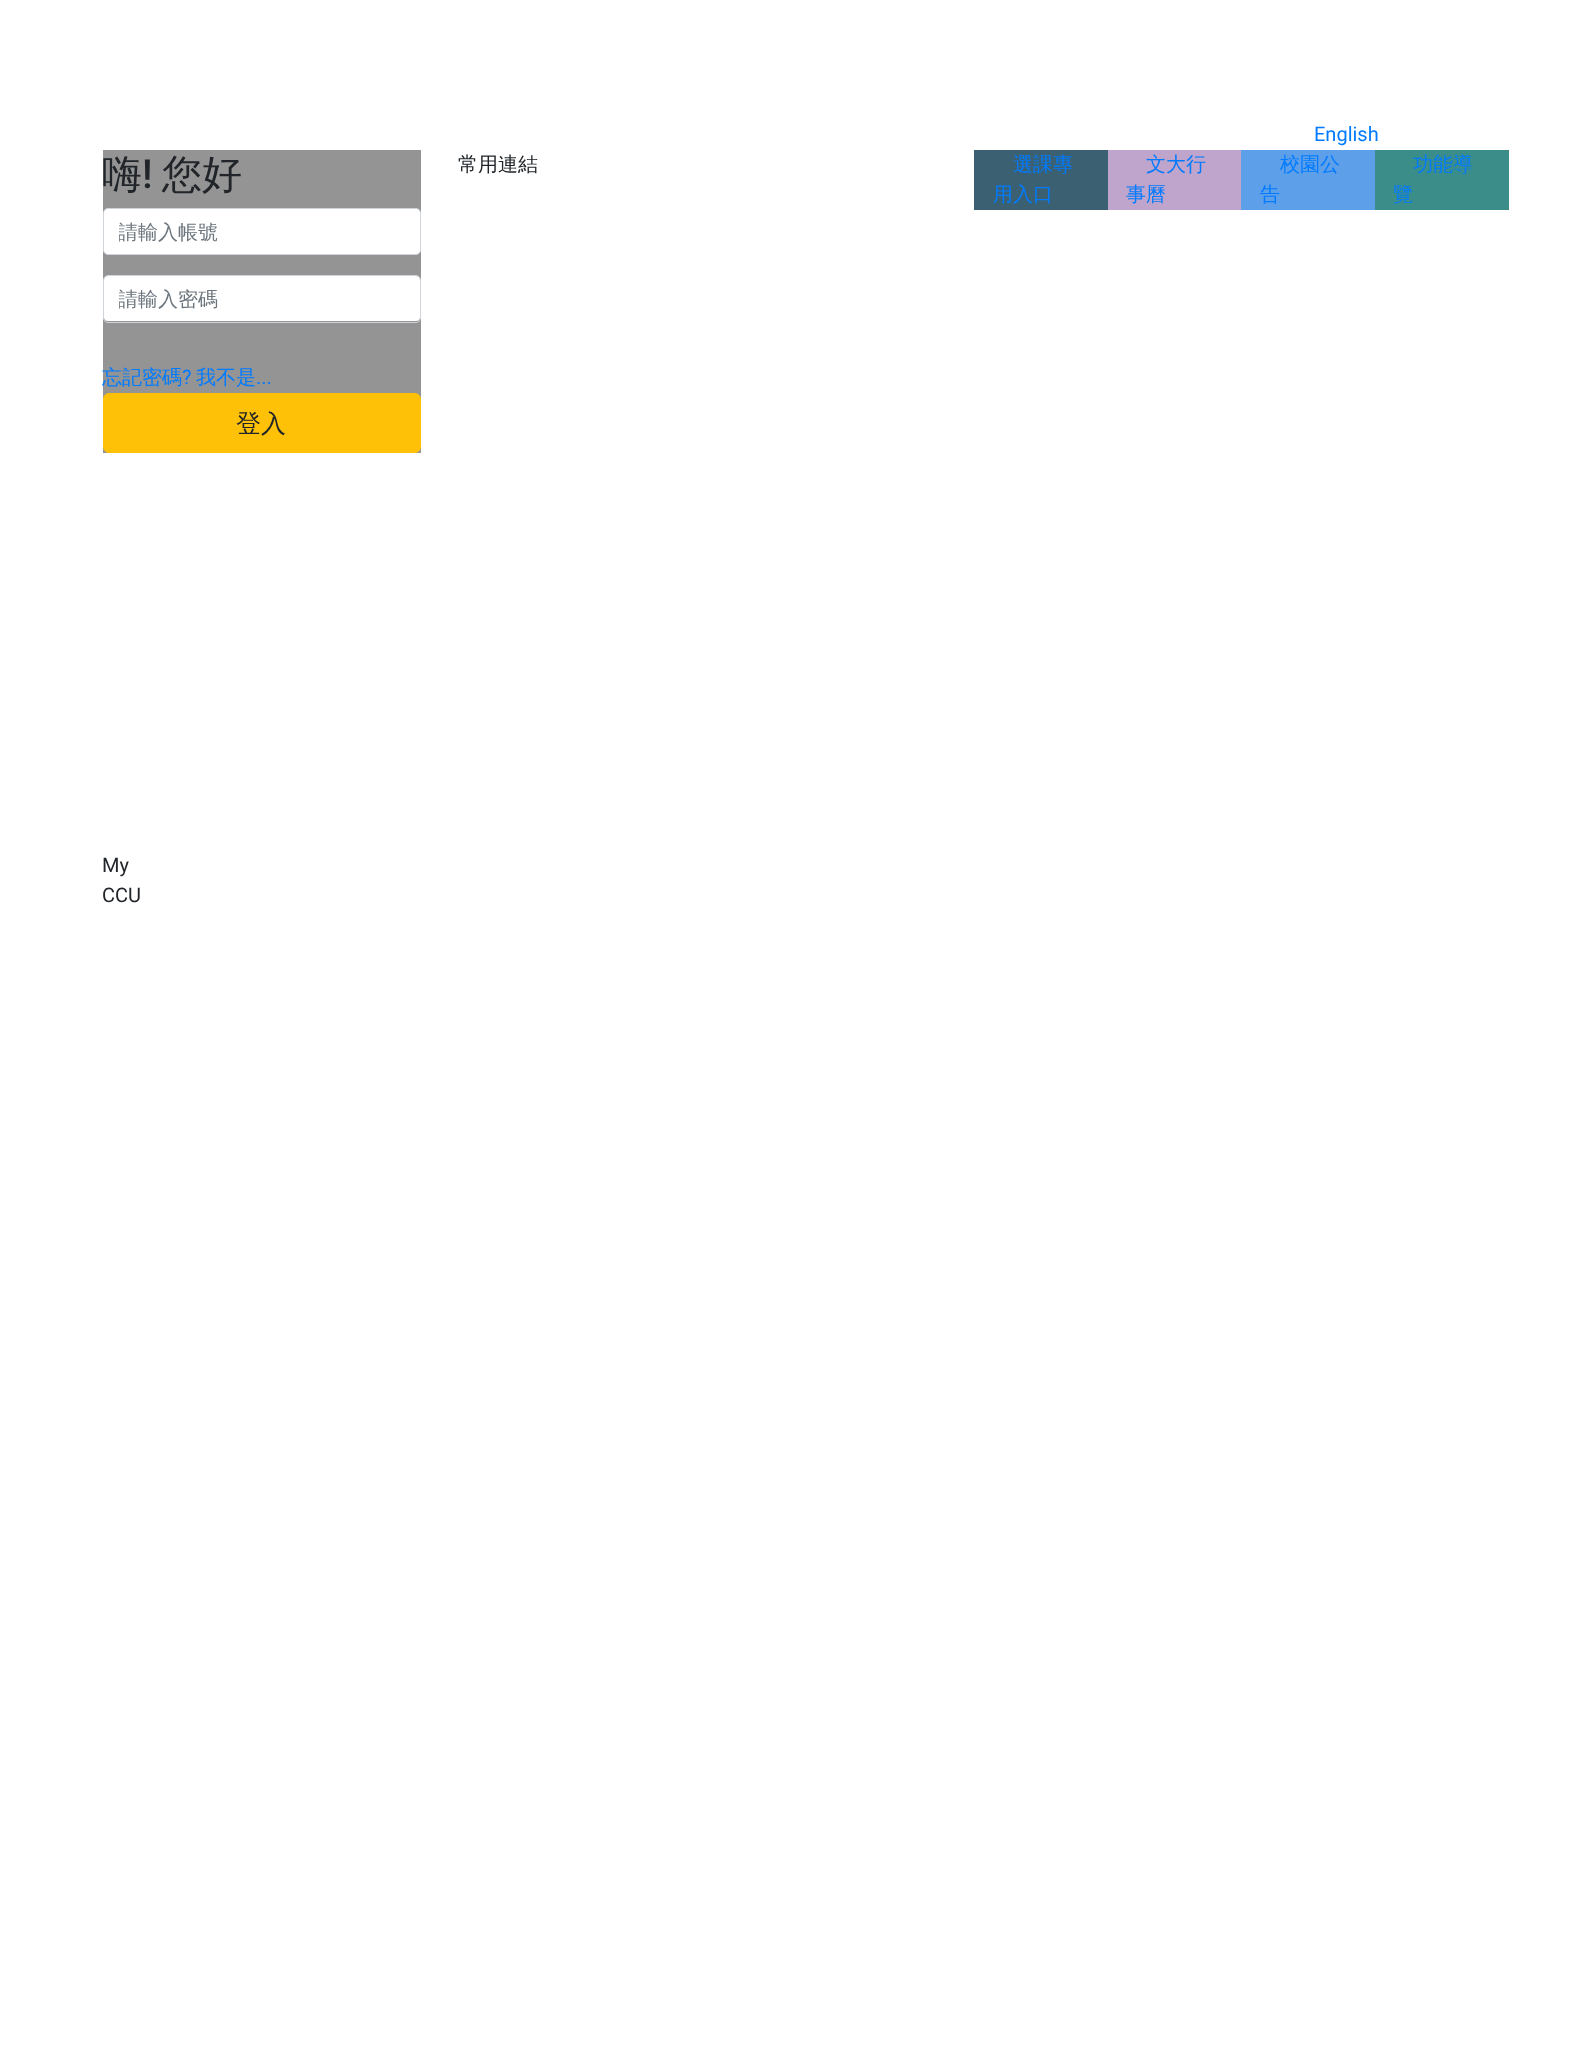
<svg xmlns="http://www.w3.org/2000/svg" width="1591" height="2056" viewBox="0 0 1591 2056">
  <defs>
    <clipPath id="clip1"><rect x="119" y="220" width="286" height="26"/></clipPath>
    <clipPath id="clip2"><rect x="119" y="288" width="286" height="26"/></clipPath>
  </defs>
  <rect width="100%" height="100%" fill="rgb(255,255,255)"/>
  <text x="1314" y="141" font-family="Roboto" font-size="20" fill="rgb(0,123,255)">English</text>
  <rect x="103" y="150" width="318" height="303" fill="rgb(148,148,148)"/>
  <text x="102" y="188" font-family="WenQuanYi Zen Hei" font-size="40" font-weight="500" fill="rgb(33,37,41)">嗨</text>
  <text x="142" y="188" font-family="Roboto" font-size="40" font-weight="500" fill="rgb(33,37,41)">!</text>
  <text x="162" y="188" font-family="WenQuanYi Zen Hei" font-size="40" font-weight="500" fill="rgb(33,37,41)">您好</text>
  <rect x="103.5" y="208.5" width="317" height="46" rx="4.5" fill="rgb(255,255,255)" stroke="rgb(206,212,218)"/>
  <g clip-path="url(#clip1)">
    <text x="118" y="239" font-family="WenQuanYi Zen Hei" font-size="20" font-weight="500" fill="rgb(108,117,125)">請輸入帳號</text>
  </g>
  <rect x="104" y="276" width="316" height="45" rx="4" fill="rgb(255,255,255)"/>
  <rect x="103.5" y="275.5" width="317" height="47" rx="4.5" fill="none" stroke="rgb(206,212,218)"/>
  <g clip-path="url(#clip2)">
    <text x="118" y="306" font-family="WenQuanYi Zen Hei" font-size="20" font-weight="500" fill="rgb(108,117,125)">請輸入密碼</text>
  </g>
  <text x="102" y="384" font-family="WenQuanYi Zen Hei" font-size="20" font-weight="500" fill="rgb(0,123,255)">忘記密碼</text>
  <text x="182" y="384" font-family="Roboto" font-size="20" fill="rgb(0,123,255)">?</text>
  <text x="196" y="384" font-family="WenQuanYi Zen Hei" font-size="20" font-weight="500" fill="rgb(0,123,255)">我不是</text>
  <text x="256" y="384" font-family="Roboto" font-size="20" fill="rgb(0,123,255)">...</text>
  <rect x="103.5" y="393.5" width="317" height="59" rx="5.5" fill="rgb(255,193,7)" stroke="rgb(255,193,7)"/>
  <text x="236" y="432" font-family="WenQuanYi Zen Hei" font-size="25" font-weight="500" fill="rgb(33,37,41)">登入</text>
  <text x="458" y="171" font-family="WenQuanYi Zen Hei" font-size="20" font-weight="500" fill="rgb(33,37,41)">常用連結</text>
  <rect x="974" y="150" width="134" height="60" fill="rgb(58,96,113)"/>
  <g font-family="WenQuanYi Zen Hei" font-size="20" font-weight="500" fill="rgb(0,123,255)">
    <text x="1013" y="171">選課專</text>
    <text x="993" y="201">用入口</text>
  </g>
  <rect x="1108" y="150" width="133" height="60" fill="rgb(191,164,203)"/>
  <g font-family="WenQuanYi Zen Hei" font-size="20" font-weight="500" fill="rgb(0,123,255)">
    <text x="1146" y="171">文大行</text>
    <text x="1126" y="201">事曆</text>
  </g>
  <rect x="1241" y="150" width="134" height="60" fill="rgb(93,159,233)"/>
  <g font-family="WenQuanYi Zen Hei" font-size="20" font-weight="500" fill="rgb(0,123,255)">
    <text x="1280" y="171">校園公</text>
    <text x="1260" y="201">告</text>
  </g>
  <rect x="1375" y="150" width="134" height="60" fill="rgb(59,141,138)"/>
  <g font-family="WenQuanYi Zen Hei" font-size="20" font-weight="500" fill="rgb(0,123,255)">
    <text x="1413" y="171">功能導</text>
    <text x="1393" y="201">覽</text>
  </g>
  <g font-family="Roboto" font-size="20" fill="rgb(33,37,41)">
    <text>
      <tspan x="102" y="872">My</tspan>
      <tspan x="102" y="902">CCU</tspan>
    </text>
  </g>
</svg>
